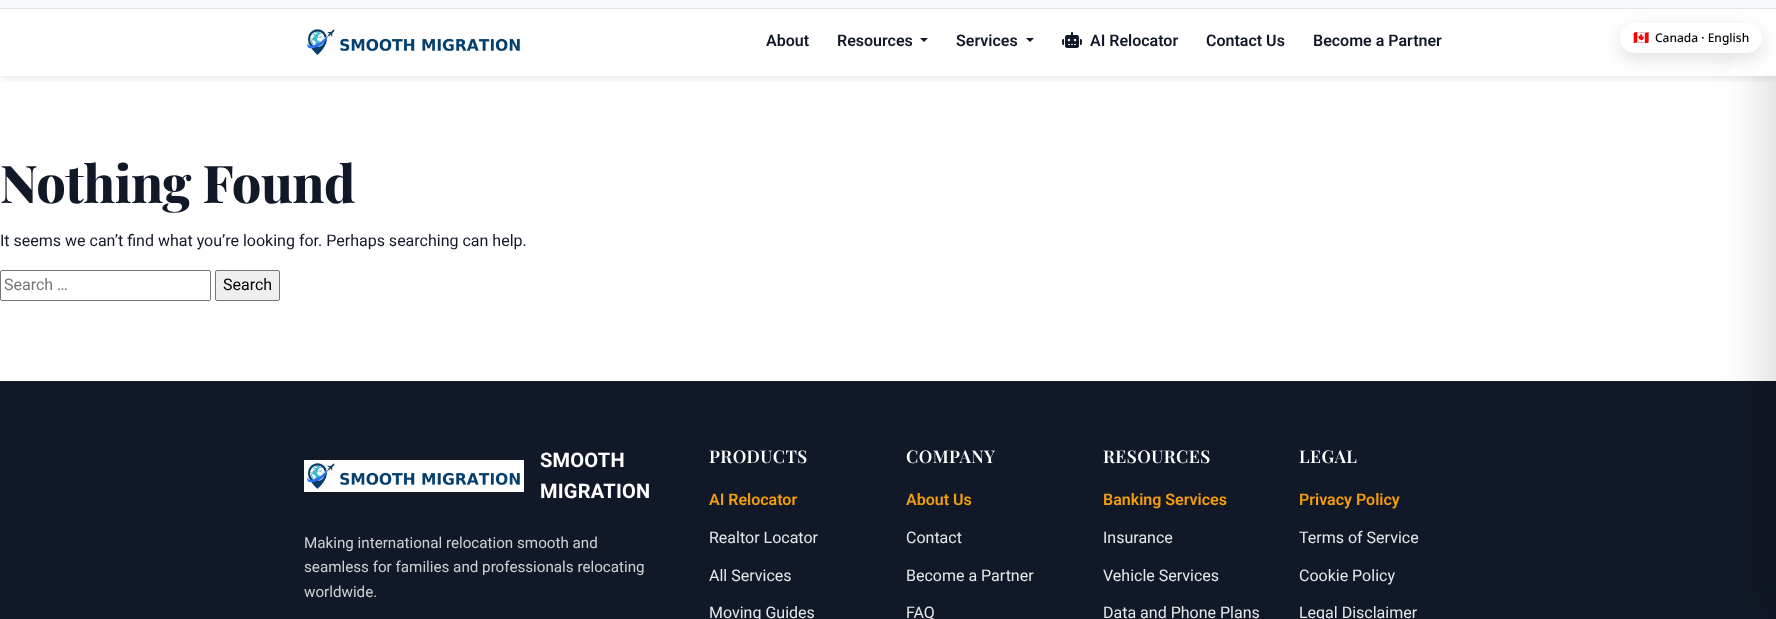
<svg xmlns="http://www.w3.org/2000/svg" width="1776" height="619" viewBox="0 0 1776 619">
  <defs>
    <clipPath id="clip1"><rect x="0" y="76" width="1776" height="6"/></clipPath>
  </defs>
  <rect width="100%" height="100%" fill="rgb(255,255,255)"/>
  <rect x="0" y="381" width="1776" height="238" fill="rgb(17,24,39)"/>
  <rect x="1766" y="0" width="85" height="619" fill="rgba(0,0,0,0.15)" filter="blur(25px)"/>
  <g clip-path="url(#clip1)">
    <rect x="0" y="11" width="1776" height="67" fill="rgba(0,0,0,0.1)" filter="blur(5px)"/>
  </g>
  <rect x="0" y="0" width="1776" height="8" fill="rgb(248,249,250)"/>
  <rect x="0" y="8" width="1776" height="1" fill="rgb(228,229,230)"/>
  <rect x="1730" y="9" width="46" height="67" fill="rgba(255,255,255,0.95)"/>
  <image x="307" y="29" width="213" height="26" href="pic1.png"/>
  <g font-family="Roboto" font-size="16" font-weight="600" fill="rgb(17,24,39)">
    <text x="766" y="46">About</text>
    <text x="837" y="46">Resources</text>
  </g>
  <path d="M920 38H928L924 42Z" fill="rgb(17,24,39)"/>
  <text x="956" y="46" font-family="Roboto" font-size="16" font-weight="600" fill="rgb(17,24,39)">Services</text>
  <path d="M1026 38H1034L1030 42Z" fill="rgb(17,24,39)"/>
  <image x="1062" y="32" width="20" height="16" href="pic2.png"/>
  <g font-family="Roboto" font-size="16" font-weight="600" fill="rgb(17,24,39)">
    <text x="1090" y="46">AI Relocator</text>
    <text x="1206" y="46">Contact Us</text>
    <text x="1313" y="46">Become a Partner</text>
  </g>
  <rect x="1620" y="29" width="142" height="30" rx="15" fill="rgba(0,0,0,0.12)" filter="blur(9px)"/>
  <rect x="1620" y="23" width="142" height="30" rx="15" fill="rgb(255,255,255)"/>
  <text x="1633" y="42" font-family="Noto Color Emoji" font-size="13" fill="rgb(0,0,0)">🇨🇦</text>
  <text x="1655" y="42" font-family="Noto Sans" font-size="12" font-weight="500" fill="rgb(0,0,0)">Canada · English</text>
  <text x="0" y="203" font-family="Playfair Display" font-size="52" font-weight="800" letter-spacing="-0.5" fill="rgb(17,24,39)">Nothing Found</text>
  <text x="0" y="246" font-family="Roboto" font-size="16" fill="rgb(17,24,39)">It seems we can’t find what you’re looking for. Perhaps searching can help.</text>
  <rect x="0.5" y="270.5" width="210" height="30" rx="1.5" fill="none" stroke="rgb(118,118,118)"/>
  <text x="4" y="290" font-family="Roboto" font-size="16" fill="rgb(117,117,117)">Search …</text>
  <rect x="215.5" y="270.5" width="64" height="30" rx="1.5" fill="rgb(239,239,239)" stroke="rgb(118,118,118)"/>
  <text x="223" y="290" font-family="Roboto" font-size="16" fill="rgb(0,0,0)">Search</text>
  <image x="304" y="460" width="220" height="32" href="pic3.png"/>
  <g font-family="Roboto" font-size="20" font-weight="bold" letter-spacing="0.25" fill="rgb(255,255,255)">
    <text>
      <tspan x="540" y="467">SMOOTH</tspan>
      <tspan x="540" y="498">MIGRATION</tspan>
    </text>
  </g>
  <g font-family="Roboto" font-size="15.2" fill="rgb(207,209,212)">
    <text>
      <tspan x="304" y="548">Making international relocation smooth and</tspan>
      <tspan x="304" y="572">seamless for families and professionals relocating</tspan>
      <tspan x="304" y="597">worldwide.</tspan>
    </text>
  </g>
  <text x="709" y="463" font-family="Playfair Display" font-size="17.5" font-weight="600" letter-spacing="0.5" fill="rgb(255,255,255)">PRODUCTS</text>
  <text x="709" y="505" font-family="Roboto" font-size="16" font-weight="600" fill="rgb(245,158,11)">AI Relocator</text>
  <g font-family="Roboto" font-size="16" fill="rgb(231,232,233)">
    <text x="709" y="543">Realtor Locator</text>
    <text x="709" y="581">All Services</text>
    <text x="709" y="618">Moving Guides</text>
  </g>
  <text x="906" y="463" font-family="Playfair Display" font-size="17.5" font-weight="600" letter-spacing="0.5" fill="rgb(255,255,255)">COMPANY</text>
  <text x="906" y="505" font-family="Roboto" font-size="16" font-weight="600" fill="rgb(245,158,11)">About Us</text>
  <g font-family="Roboto" font-size="16" fill="rgb(231,232,233)">
    <text x="906" y="543">Contact</text>
    <text x="906" y="581">Become a Partner</text>
    <text x="906" y="618">FAQ</text>
  </g>
  <text x="1103" y="463" font-family="Playfair Display" font-size="17.5" font-weight="600" letter-spacing="0.5" fill="rgb(255,255,255)">RESOURCES</text>
  <text x="1103" y="505" font-family="Roboto" font-size="16" font-weight="600" fill="rgb(245,158,11)">Banking Services</text>
  <g font-family="Roboto" font-size="16" fill="rgb(231,232,233)">
    <text x="1103" y="543">Insurance</text>
    <text x="1103" y="581">Vehicle Services</text>
    <text x="1103" y="618">Data and Phone Plans</text>
  </g>
  <text x="1299" y="463" font-family="Playfair Display" font-size="17.5" font-weight="600" letter-spacing="0.5" fill="rgb(255,255,255)">LEGAL</text>
  <text x="1299" y="505" font-family="Roboto" font-size="16" font-weight="600" fill="rgb(245,158,11)">Privacy Policy</text>
  <g font-family="Roboto" font-size="16" fill="rgb(231,232,233)">
    <text x="1299" y="543">Terms of Service</text>
    <text x="1299" y="581">Cookie Policy</text>
    <text x="1299" y="618">Legal Disclaimer</text>
  </g>
</svg>
